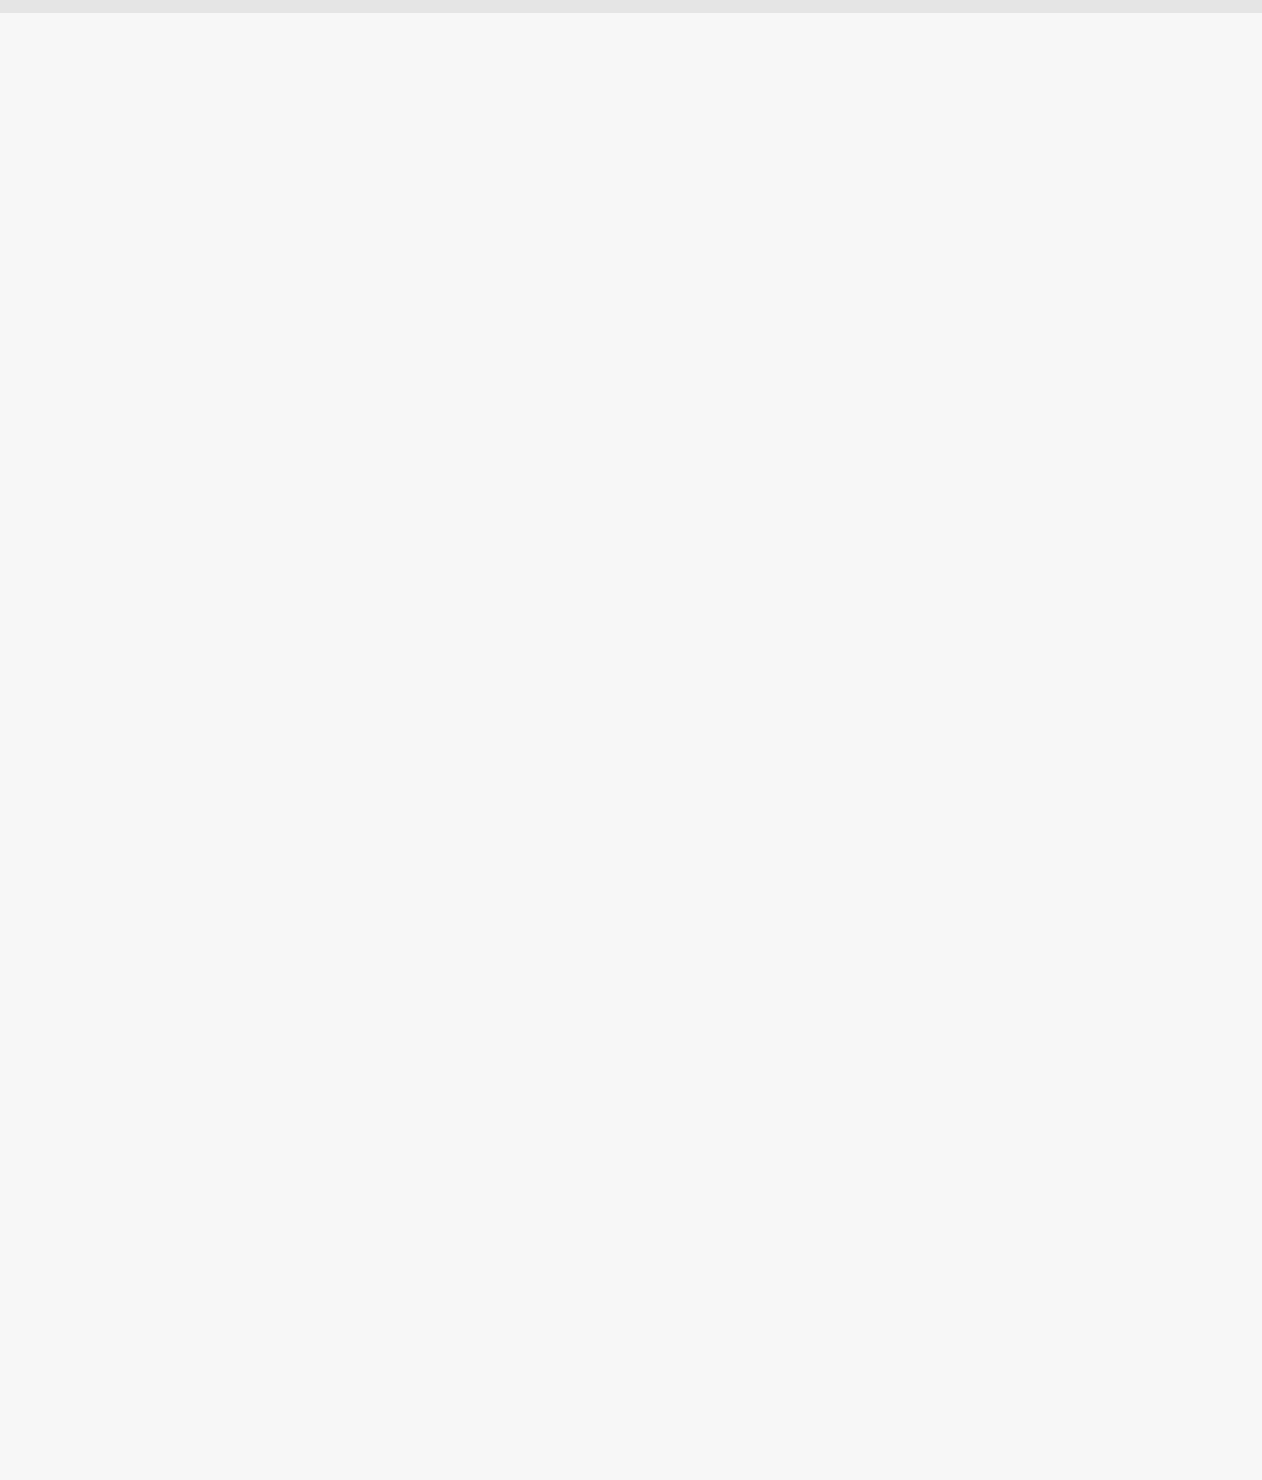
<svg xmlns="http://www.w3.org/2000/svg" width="1262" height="1480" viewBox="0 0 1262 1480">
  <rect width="100%" height="100%" fill="rgb(247,247,247)"/>
  <rect x="0" y="0" width="1262" height="13" fill="rgb(229,229,229)"/>
</svg>
